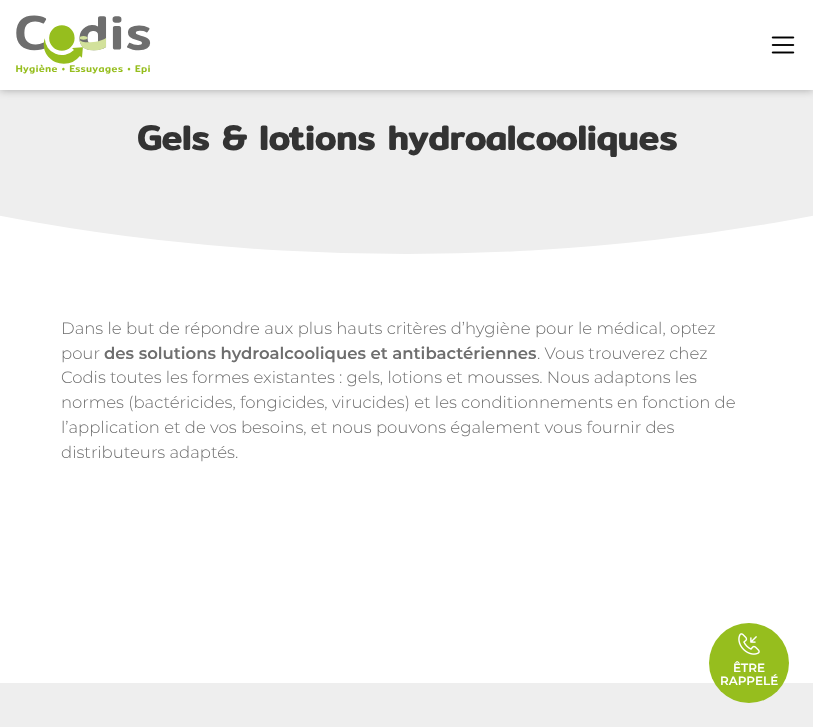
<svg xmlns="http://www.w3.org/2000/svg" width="813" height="727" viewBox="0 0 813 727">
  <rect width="100%" height="100%" fill="rgb(255,255,255)"/>
  <ellipse cx="406.5" cy="-472.5" rx="1269.5" ry="726.5" fill="rgb(238,238,238)"/>
  <text x="137" y="150" font-family="Mitr" font-size="34.5" font-weight="bold" fill="rgb(51,51,51)">Gels &amp; lotions hydroalcooliques</text>
  <g font-family="Montserrat" font-size="16.5" font-weight="300" fill="rgb(110,110,110)">
    <text>
      <tspan x="61" y="334">Dans le but de répondre aux plus hauts critères d’hygiène pour le médical, optez</tspan>
      <tspan x="61" y="359">pour</tspan>
    </text>
  </g>
  <text x="104" y="359" font-family="Montserrat" font-size="16.5" font-weight="600" fill="rgb(110,110,110)">des solutions hydroalcooliques et antibactériennes</text>
  <g font-family="Montserrat" font-size="16.5" font-weight="300" fill="rgb(110,110,110)">
    <text x="537" y="359">. Vous trouverez chez</text>
    <text>
      <tspan x="61" y="383">Codis toutes les formes existantes : gels, lotions et mousses. Nous adaptons les</tspan>
      <tspan x="61" y="408">normes (bactéricides, fongicides, virucides) et les conditionnements en fonction de</tspan>
      <tspan x="61" y="433">l’application et de vos besoins, et nous pouvons également vous fournir des</tspan>
      <tspan x="61" y="458">distributeurs adaptés.</tspan>
    </text>
  </g>
  <rect x="0" y="683" width="813" height="44" fill="rgb(238,238,238)"/>
  <rect x="0" y="0" width="813" height="90" fill="rgba(0,0,0,0.3)" filter="blur(4px)"/>
  <rect x="0" y="0" width="813" height="90" fill="rgb(255,255,255)"/>
  <image x="16" y="15" width="135" height="59" href="pic1.png"/>
  <image x="771" y="36" width="24" height="18" href="pic2.png"/>
  <circle cx="749" cy="663" r="40" fill="rgb(150,190,30)"/>
  <image x="738" y="633" width="22" height="22" href="pic3.png"/>
  <g font-family="Montserrat" font-size="12" font-weight="600" fill="rgb(255,255,255)">
    <text x="733" y="672">ÊTRE</text>
    <text x="720" y="685">RAPPELÉ</text>
  </g>
</svg>
